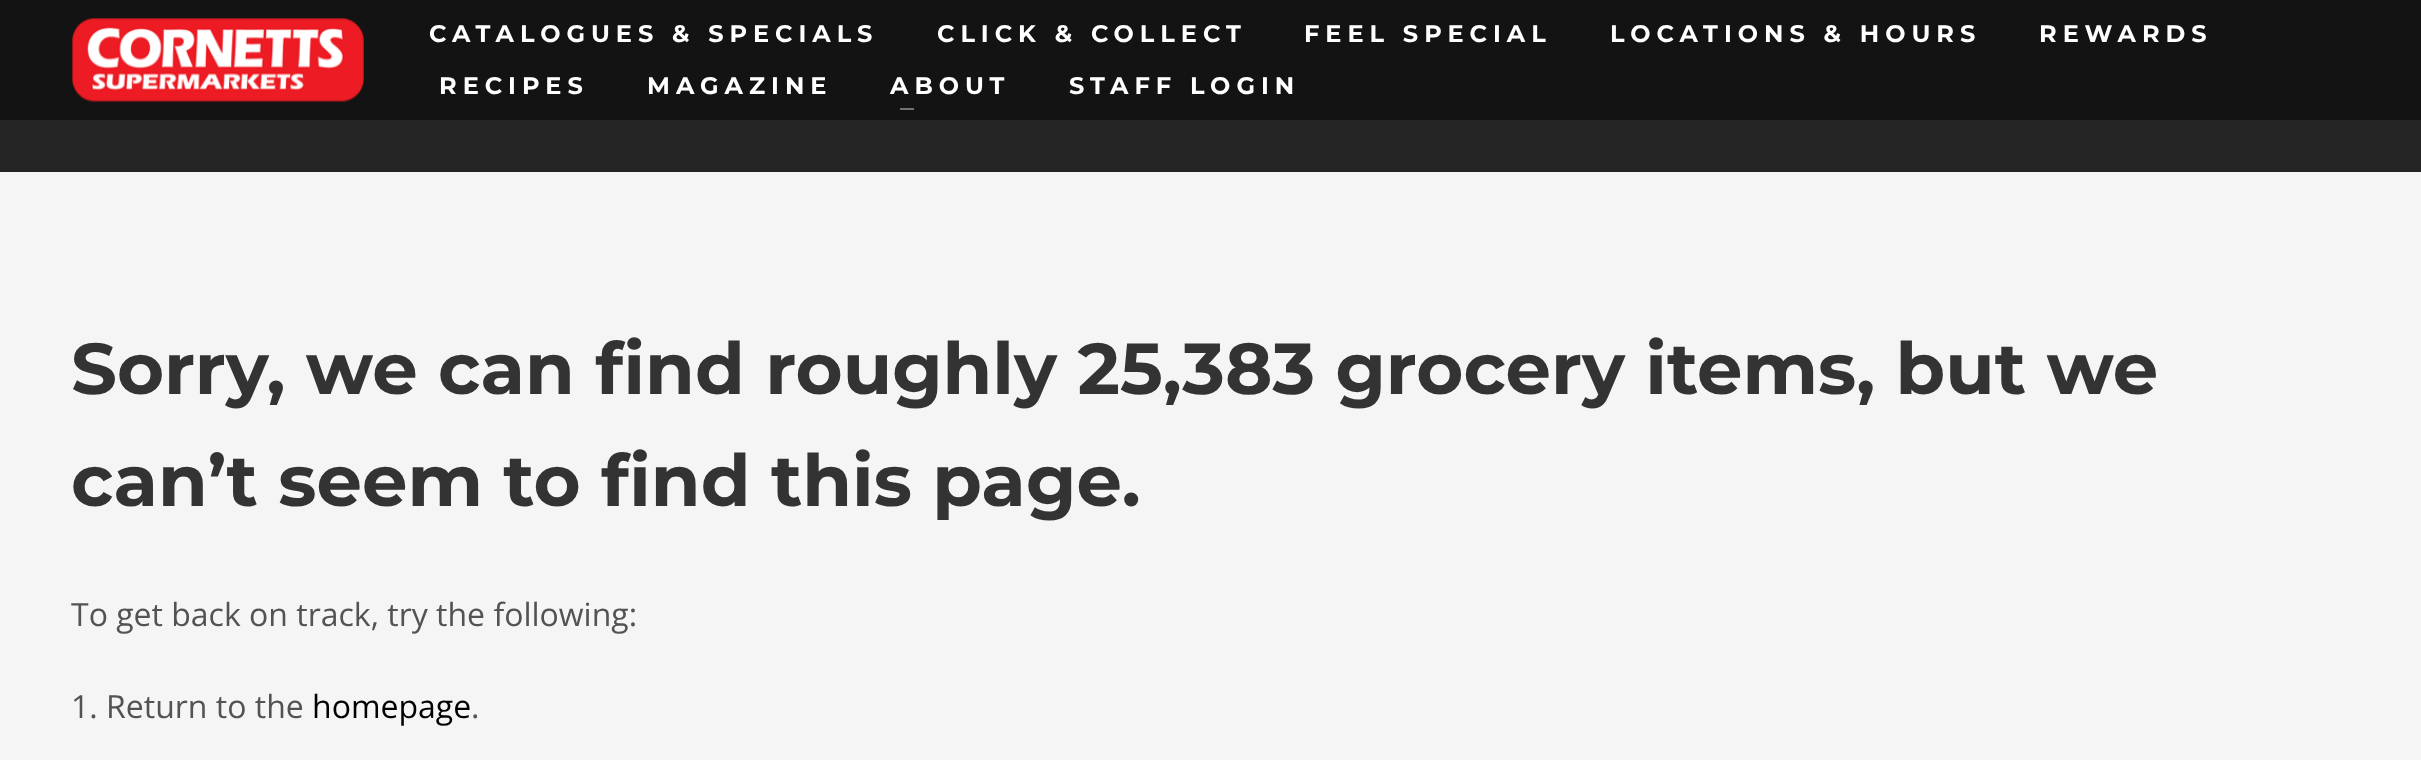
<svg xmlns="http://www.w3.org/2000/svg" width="2421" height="760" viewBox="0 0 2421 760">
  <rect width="100%" height="100%" fill="rgb(245,245,245)"/>
  <rect x="0" y="120" width="2421" height="52" fill="rgb(37,37,37)"/>
  <rect x="0" y="0" width="2421" height="120" fill="rgb(19,19,19)"/>
  <image x="72" y="18" width="292" height="84" href="pic1.png"/>
  <g font-family="Montserrat" font-size="24" font-weight="bold" letter-spacing="6" fill="rgb(255,255,255)">
    <text x="429" y="42">CATALOGUES &amp; SPECIALS</text>
    <text x="937" y="42">CLICK &amp; COLLECT</text>
    <text x="1304" y="42">FEEL SPECIAL</text>
    <text x="1610" y="42">LOCATIONS &amp; HOURS</text>
    <text x="2039" y="42">REWARDS</text>
    <text x="439" y="94">RECIPES</text>
    <text x="647" y="94">MAGAZINE</text>
    <text x="890" y="94">ABOUT</text>
  </g>
  <rect x="900" y="108" width="14" height="2" fill="rgb(113,113,113)"/>
  <text x="1069" y="94" font-family="Montserrat" font-size="24" font-weight="bold" letter-spacing="6" fill="rgb(255,255,255)">STAFF LOGIN</text>
  <g font-family="Montserrat" font-size="72" font-weight="bold" fill="rgb(51,51,51)">
    <text>
      <tspan x="71" y="394">Sorry, we can find roughly 25,383 grocery items, but we</tspan>
      <tspan x="71" y="506">can’t seem to find this page.</tspan>
    </text>
  </g>
  <g font-family="Open Sans" font-size="32" fill="rgb(83,83,83)">
    <text x="71" y="626">To get back on track, try the following:</text>
    <text x="71" y="718">1. Return to the</text>
  </g>
  <text x="312" y="718" font-family="Open Sans" font-size="32" fill="rgb(0,0,0)">homepage</text>
  <text x="471" y="718" font-family="Open Sans" font-size="32" fill="rgb(83,83,83)">.</text>
</svg>
